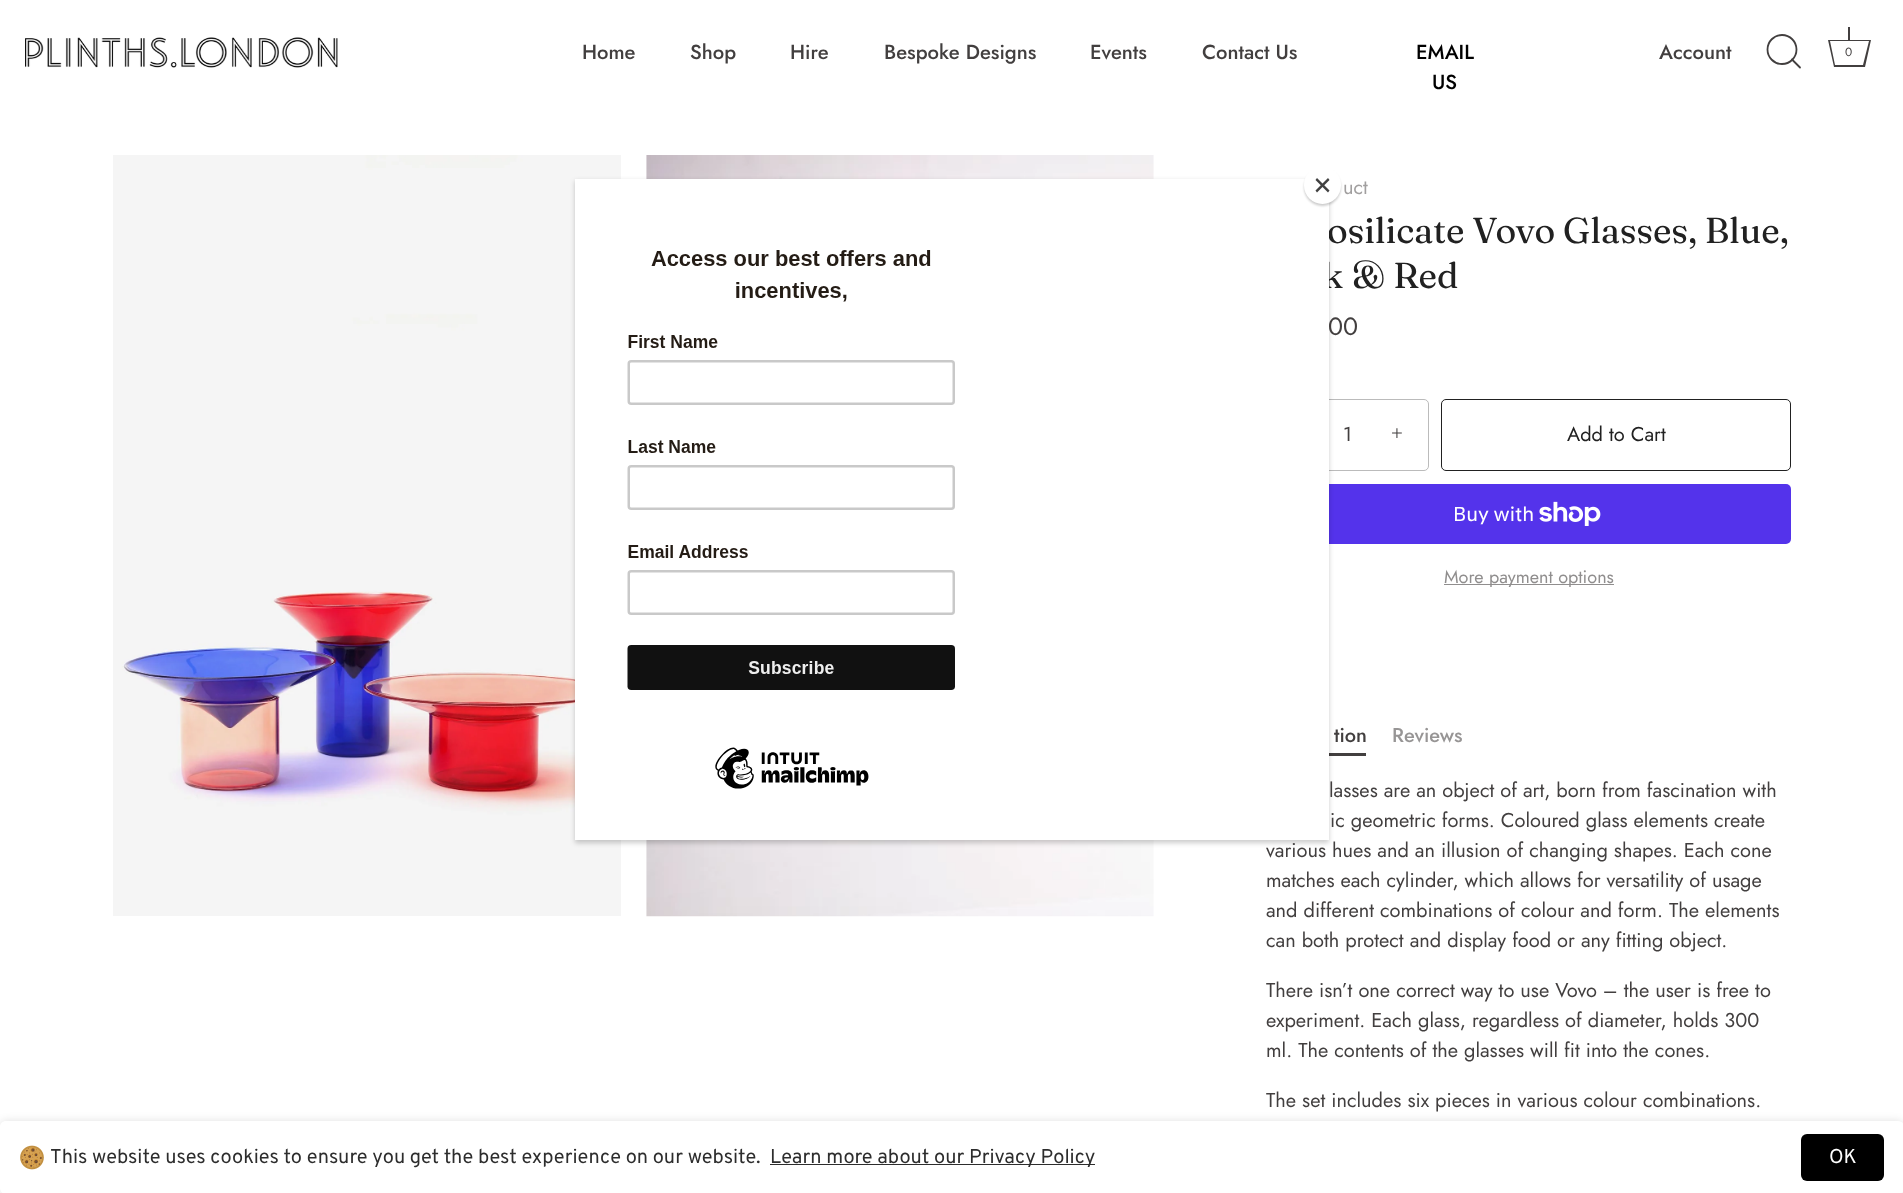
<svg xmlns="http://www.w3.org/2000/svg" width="1903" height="1193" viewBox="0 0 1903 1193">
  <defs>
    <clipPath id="clip1"><path d="M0 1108H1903V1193H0ZM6 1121H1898C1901.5 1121 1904 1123.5 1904 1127V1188C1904 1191.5 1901.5 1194 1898 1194H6C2.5 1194 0 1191.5 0 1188V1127C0 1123.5 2.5 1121 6 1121Z" clip-rule="evenodd"/></clipPath>
  </defs>
  <rect width="100%" height="100%" fill="rgb(255,255,255)"/>
  <image x="25" y="37" width="313" height="31" href="pic1.png"/>
  <g font-family="Jost" font-size="20.25" font-weight="500" fill="rgb(66,63,63)">
    <text x="582" y="59">Home</text>
    <text x="690" y="59">Shop</text>
    <text x="790" y="59">Hire</text>
    <text x="884" y="59">Bespoke Designs</text>
    <text x="1090" y="59">Events</text>
    <text x="1202" y="59">Contact Us</text>
  </g>
  <g font-family="Jost" font-size="20.25" font-weight="500" fill="rgb(0,0,0)">
    <text x="1416" y="59">EMAIL</text>
    <text x="1432" y="89">US</text>
  </g>
  <text x="1659" y="59" font-family="Jost" font-size="20.25" font-weight="500" fill="rgb(66,63,63)">Account</text>
  <circle cx="1782" cy="49.5" r="14.5" fill="none" stroke="rgb(66,63,63)" stroke-width="1.8"/>
  <path d="M1800 67.5L1792 59.5" fill="none" stroke="rgb(66,63,63)" stroke-width="1.8" stroke-linecap="round" stroke-linejoin="round"/>
  <rect x="1848" y="27" width="2" height="13" fill="rgb(66,63,63)"/>
  <path d="M1869 41L1863 65H1835L1830 41H1869M1871 40H1828L1834 67H1865Z" fill="rgb(66,63,63)"/>
  <text x="1845" y="56" font-family="Jost" font-size="12" fill="rgb(66,63,63)">0</text>
  <image x="113" y="155" width="508" height="761" href="pic3.png"/>
  <image x="646" y="155" width="508" height="762" href="pic4.png"/>
  <rect x="1266.5" y="399.5" width="162" height="71" rx="4.5" fill="none" stroke="rgb(187,187,187)"/>
  <rect x="1266" y="484" width="525" height="60" rx="5" fill="rgb(84,51,235)"/>
  <rect x="1329" y="753" width="37" height="3" fill="rgb(66,63,63)"/>
  <rect x="575" y="181" width="754" height="662" fill="rgba(0,0,0,0.2)" filter="blur(2.5px)"/>
  <g font-family="Fraunces" font-size="36" fill="rgb(33,33,33)">
    <text x="1327" y="243">osilicate Vovo Glasses, Blue,</text>
    <text x="1322" y="288">k &amp; Red</text>
  </g>
  <text x="1328" y="335" font-family="Jost" font-size="25" fill="rgb(66,63,63)">00</text>
  <image x="575" y="179" width="754" height="661" href="pic2.png"/>
  <rect x="1304" y="169" width="37" height="37" rx="18.5" fill="rgba(0,0,0,0.2)" filter="blur(1px)"/>
  <rect x="1304" y="166" width="37" height="38" rx="18.5" fill="rgb(255,255,255)"/>
  <path d="M1328 178L1329.5 180L1317 192.5L1315.5 190.5Z" fill="rgb(65,65,65)"/>
  <path d="M1315.5 180L1317 178L1329.5 190.5L1328 192.5Z" fill="rgb(65,65,65)"/>
  <text x="1343" y="194" font-family="Jost" font-size="20" fill="rgb(161,159,159)">uct</text>
  <text x="1343" y="441" font-family="Jost" font-size="20" letter-spacing="1" fill="rgb(66,63,63)">1</text>
  <text x="1391" y="440" font-family="Liberation Serif" font-size="21" fill="rgb(66,63,63)">+</text>
  <rect x="1441.5" y="399.5" width="349" height="71" rx="4.5" fill="none" stroke="rgb(33,33,33)"/>
  <text x="1567" y="441" font-family="Jost" font-size="20" fill="rgb(33,33,33)">Add to Cart</text>
  <text x="1453" y="521" font-family="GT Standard" font-size="20" fill="rgb(255,255,255)">Buy with</text>
  <image x="1539" y="501" width="62" height="25" href="pic5.png"/>
  <rect x="1444" y="584" width="170" height="1" fill="rgb(144,142,142)"/>
  <text x="1444" y="583" font-family="Jost" font-size="18" fill="rgb(144,142,142)">More payment options</text>
  <text x="1334" y="742" font-family="Jost" font-size="20" font-weight="500" fill="rgb(66,63,63)">tion</text>
  <text x="1392" y="742" font-family="Jost" font-size="20" font-weight="500" fill="rgb(151,149,149)">Reviews</text>
  <g font-family="Jost" font-size="20" fill="rgb(66,63,63)">
    <text x="1329" y="797">lasses are an object of art, born from fascination with</text>
    <text x="1330" y="827">ic geometric forms. Coloured glass elements create</text>
    <text>
      <tspan x="1266" y="857">various hues and an illusion of changing shapes. Each cone</tspan>
      <tspan x="1266" y="887">matches each cylinder, which allows for versatility of usage</tspan>
      <tspan x="1266" y="917">and different combinations of colour and form. The elements</tspan>
      <tspan x="1266" y="947">can both protect and display food or any fitting object.</tspan>
    </text>
    <text>
      <tspan x="1266" y="997">There isn’t one correct way to use Vovo – the user is free to</tspan>
      <tspan x="1266" y="1027">experiment. Each glass, regardless of diameter, holds 300</tspan>
      <tspan x="1266" y="1057">ml. The contents of the glasses will fit into the cones.</tspan>
    </text>
    <text x="1266" y="1107">The set includes six pieces in various colour combinations.</text>
  </g>
  <g clip-path="url(#clip1)">
    <rect x="0" y="1121" width="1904" height="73" rx="6" fill="rgba(0,0,0,0.12)" filter="blur(4px)"/>
  </g>
  <image x="20" y="1145" width="24" height="25" href="pic6.png"/>
  <text x="50" y="1163" font-family="Overpass" font-size="20" fill="rgb(45,45,45)">This website uses cookies to ensure you get the best experience on our website.</text>
  <rect x="770" y="1164" width="325" height="1" fill="rgb(45,45,45)"/>
  <text x="770" y="1163" font-family="Overpass" font-size="20" fill="rgb(45,45,45)">Learn more about our Privacy Policy</text>
  <rect x="1801" y="1134" width="83" height="47" rx="6" fill="rgb(0,0,0)"/>
  <text x="1829" y="1163" font-family="Overpass" font-size="20" fill="rgb(255,255,255)">OK</text>
</svg>
